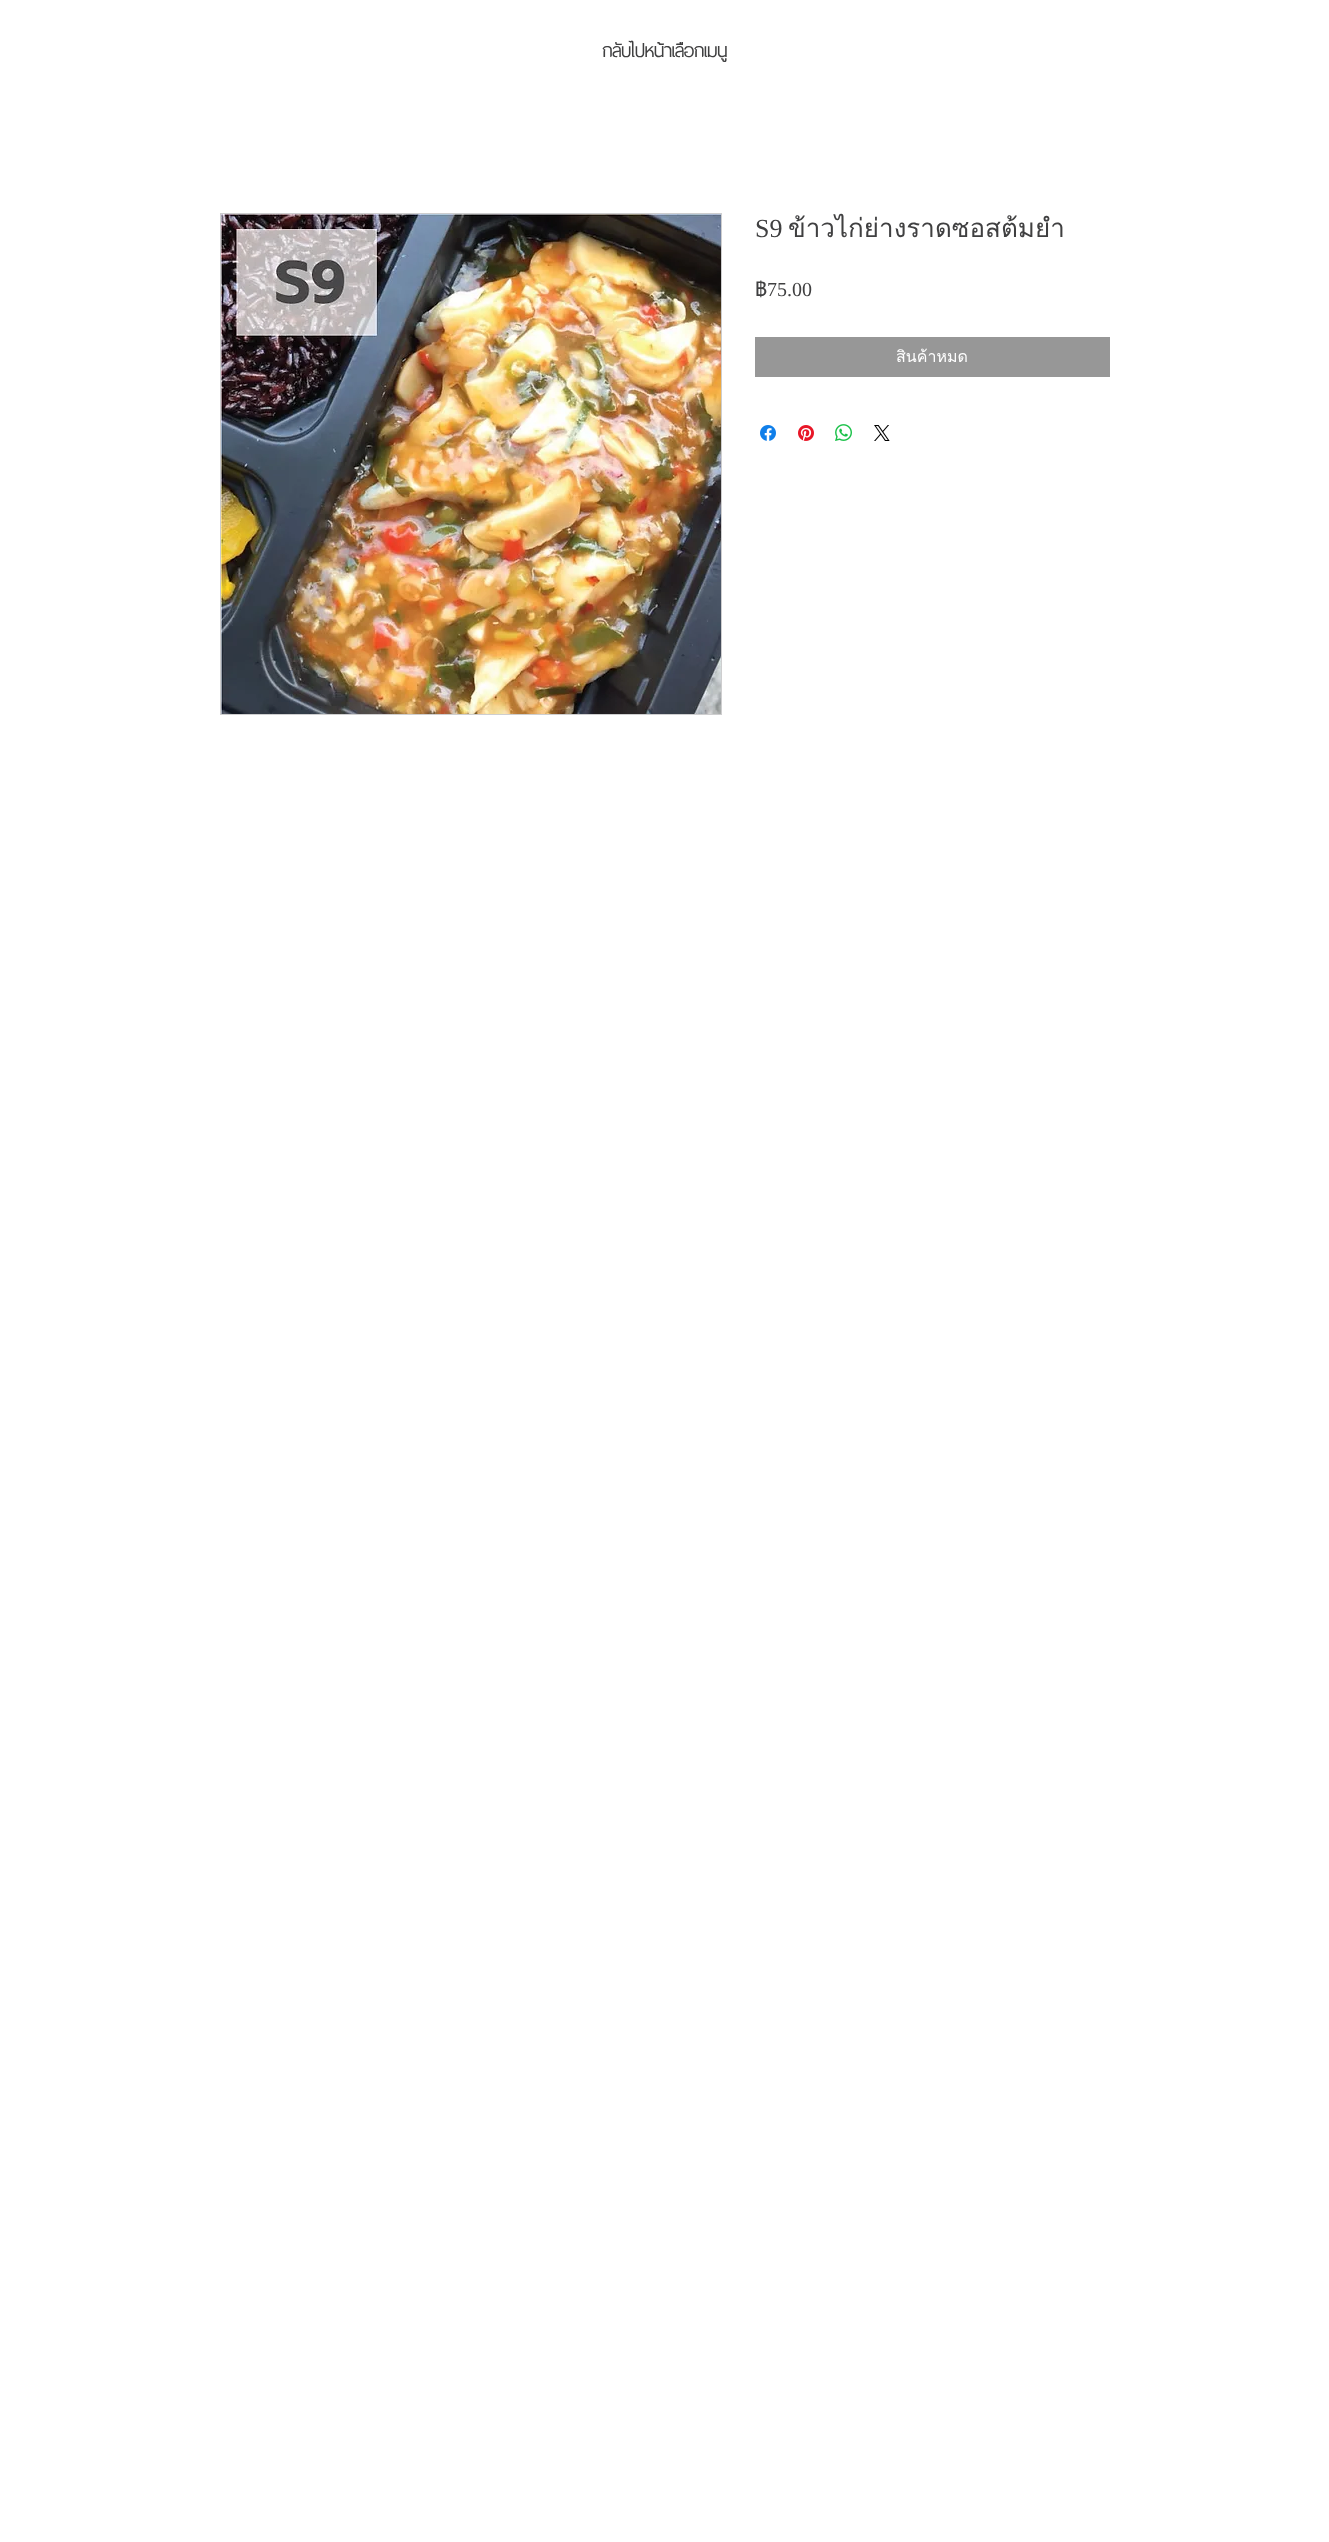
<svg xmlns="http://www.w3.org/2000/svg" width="1329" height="2542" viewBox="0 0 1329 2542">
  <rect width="100%" height="100%" fill="rgb(255,255,255)"/>
  <text x="602" y="57" font-family="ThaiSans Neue" font-size="25" font-weight="bold" fill="rgb(64,64,65)">กลับไปหน้าเลือกเมนู</text>
  <rect x="220.5" y="213.5" width="501" height="501" fill="none" stroke="rgb(206,206,207)"/>
  <image x="221" y="214" width="500" height="500" href="pic1.png"/>
  <text x="755" y="237" font-family="Liberation Serif" font-size="26" fill="rgb(64,64,65)">S9</text>
  <text x="788" y="237" font-family="Loma" font-size="26" fill="rgb(64,64,65)">ข้าวไก่ย่างราดซอสต้มยำ</text>
  <text x="755" y="296" font-family="Loma" font-size="20" fill="rgb(64,64,65)">฿</text>
  <text x="767" y="296" font-family="Liberation Serif" font-size="20" fill="rgb(64,64,65)">75.00</text>
  <rect x="755" y="337" width="355" height="40" fill="rgb(151,151,151)"/>
  <text x="896" y="362" font-family="Loma" font-size="16" fill="rgb(255,255,255)">สินค้าหมด</text>
  <image x="760" y="425" width="16" height="16" href="pic2.png"/>
  <image x="798" y="425" width="16" height="16" href="pic3.png"/>
  <image x="835" y="424" width="17" height="17" href="pic4.png"/>
  <image x="874" y="425" width="16" height="16" href="pic5.png"/>
</svg>
